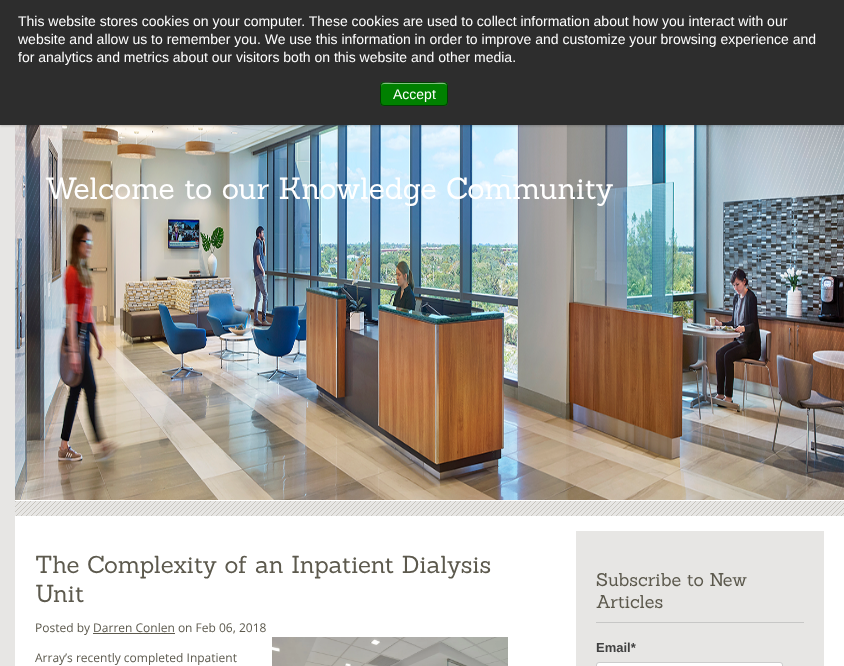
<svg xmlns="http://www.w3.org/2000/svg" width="844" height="666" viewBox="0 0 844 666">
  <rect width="100%" height="100%" fill="rgb(255,255,255)"/>
  <rect x="0" y="125" width="15" height="541" fill="rgb(231,230,228)"/>
  <image x="15" y="125" width="829" height="375" href="pic1.png"/>
  <rect x="0" y="1" width="844" height="125" fill="rgba(0,0,0,0.2)" filter="blur(1px)"/>
  <rect x="0" y="0" width="844" height="125" fill="rgb(45,45,45)"/>
  <g font-family="Liberation Sans" font-size="14" fill="rgb(255,255,255)">
    <text>
      <tspan x="18" y="26">This website stores cookies on your computer. These cookies are used to collect information about how you interact with our</tspan>
      <tspan x="18" y="44">website and allow us to remember you. We use this information in order to improve and customize your browsing experience and</tspan>
      <tspan x="18" y="62">for analytics and metrics about our visitors both on this website and other media.</tspan>
    </text>
  </g>
  <rect x="380" y="82" width="68" height="24" rx="4" fill="rgb(0,128,0)"/>
  <path d="M384 84H444C446 84 447 85 447 87C447 80 438 83 434 83H394C390 83 381 80 381 87C381 85 382 84 384 84Z" fill="rgb(128,192,128)"/>
  <rect x="380.5" y="82.5" width="67" height="23" rx="3.5" fill="none" stroke="rgba(0,0,0,0.5)"/>
  <text x="393" y="99" font-family="Liberation Sans" font-size="14" fill="rgb(255,255,255)">Accept</text>
  <text x="45" y="199" font-family="Sanchez" font-size="30" fill="rgb(255,255,255)">Welcome to our Knowledge Community</text>
  <image x="15" y="501" width="829" height="15" href="pic2.png"/>
  <g font-family="Sanchez" font-size="24" fill="rgb(92,89,77)">
    <text>
      <tspan x="35" y="573">The Complexity of an Inpatient Dialysis</tspan>
      <tspan x="35" y="602">Unit</tspan>
    </text>
  </g>
  <text x="35" y="632" font-family="Open Sans" font-size="12" fill="rgb(92,89,77)">Posted by Darren Conlen on Feb 06, 2018</text>
  <rect x="93" y="633" width="82" height="1" fill="rgb(92,89,77)"/>
  <text x="35" y="662" font-family="Open Sans" font-size="12" fill="rgb(92,89,77)">Array’s recently completed Inpatient</text>
  <image x="272" y="637" width="236" height="29" href="pic3.png"/>
  <rect x="576" y="531" width="248" height="135" fill="rgb(231,230,228)"/>
  <rect x="596" y="622" width="208" height="1" fill="rgb(199,199,198)"/>
  <g font-family="Sanchez" font-size="18" fill="rgb(92,89,77)">
    <text>
      <tspan x="596" y="586">Subscribe to New</tspan>
      <tspan x="596" y="608">Articles</tspan>
    </text>
  </g>
  <text x="596" y="652" font-family="Liberation Sans" font-size="13" font-weight="bold" fill="rgb(64,64,64)">Email*</text>
  <rect x="596.5" y="662.5" width="186" height="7" rx="2.5" fill="rgb(255,255,255)" stroke="rgb(204,204,204)"/>
</svg>
